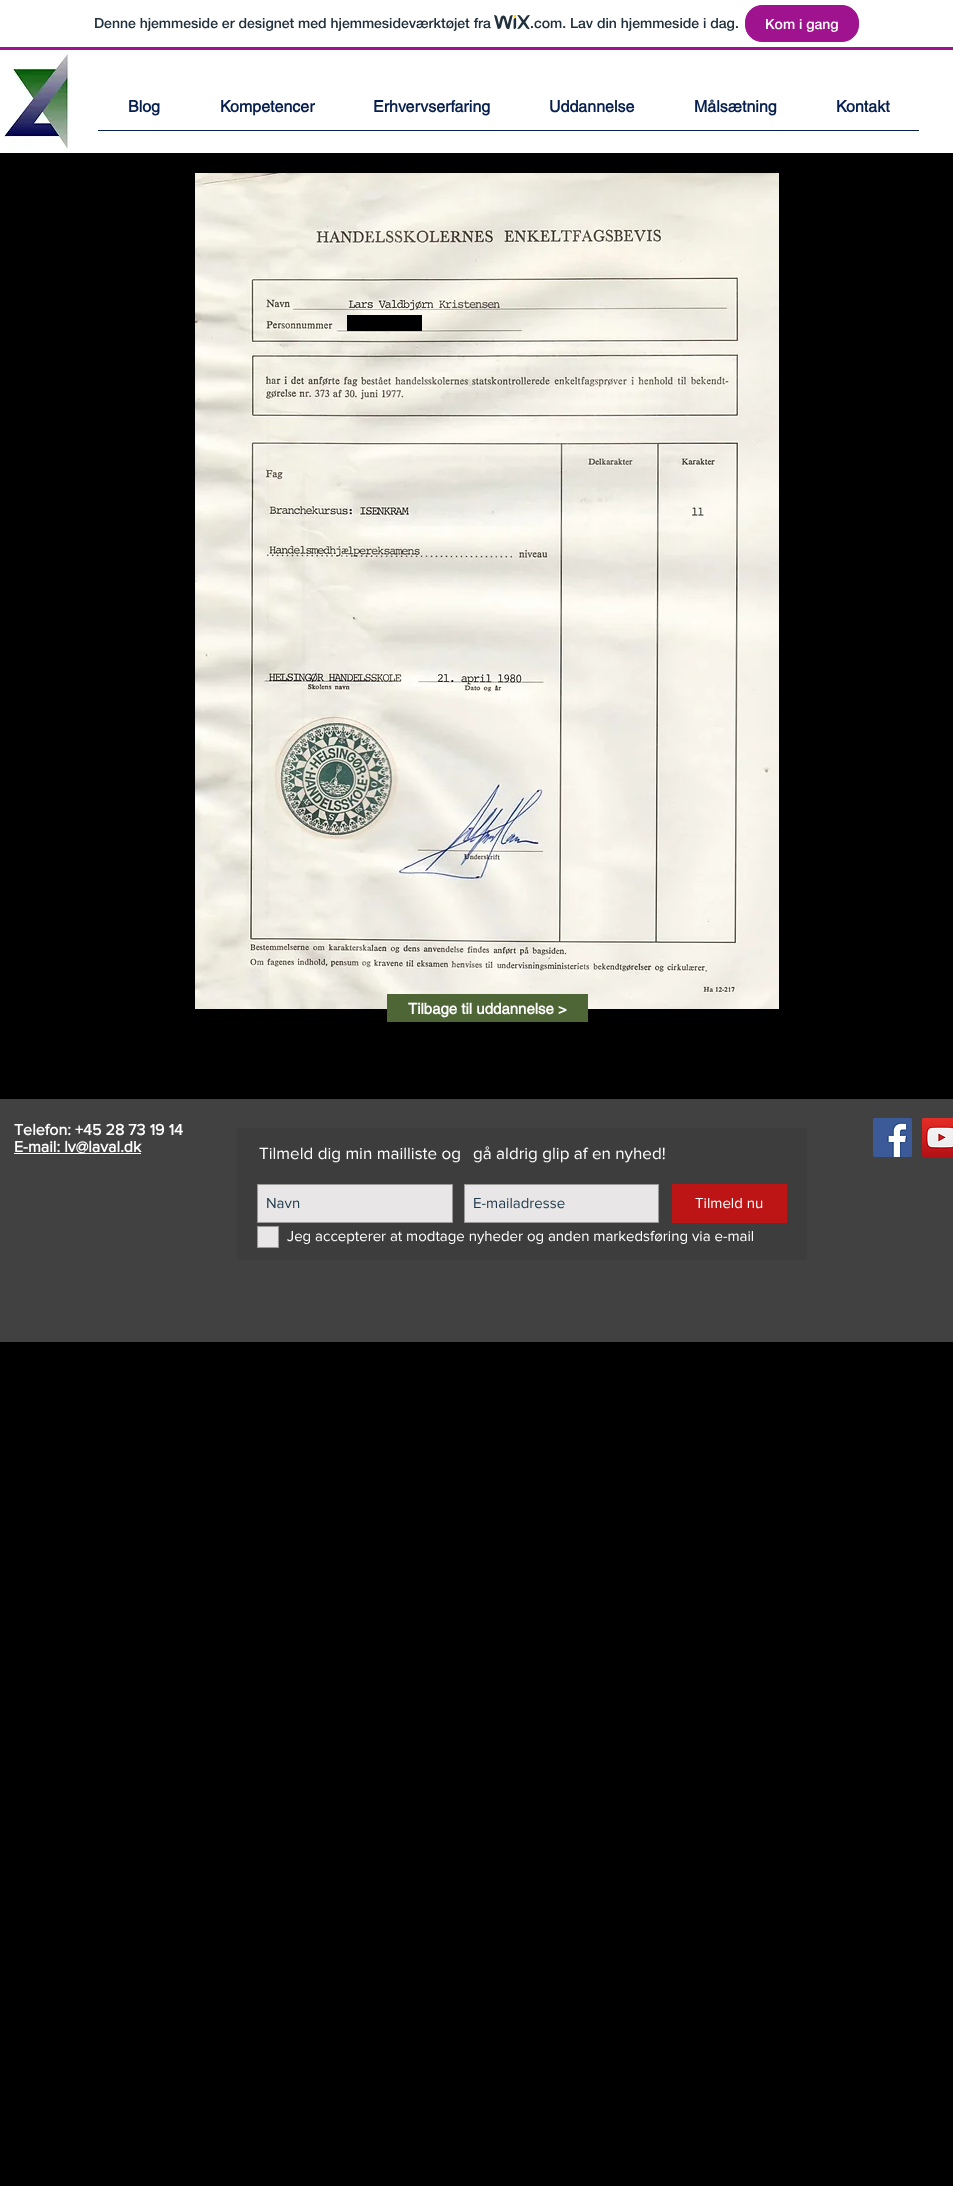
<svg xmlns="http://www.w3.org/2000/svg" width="953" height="2186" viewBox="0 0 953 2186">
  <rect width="100%" height="100%" fill="rgb(0,0,0)"/>
  <rect x="0" y="0" width="953" height="47" fill="rgb(255,255,255)"/>
  <rect x="0" y="47" width="953" height="3" fill="rgb(160,19,142)"/>
  <text x="94" y="28" font-family="'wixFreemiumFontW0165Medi'" font-size="14" font-weight="500" fill="rgb(32,48,60)">Denne hjemmeside er designet med hjemmesideværktøjet fra</text>
  <image x="494" y="15" width="36" height="15" href="pic1.png"/>
  <text x="530" y="28" font-family="'wixFreemiumFontW0165Medi'" font-size="14" font-weight="500" fill="rgb(32,48,60)">.com. Lav din hjemmeside i dag.</text>
  <rect x="745.5" y="5.5" width="113" height="36" rx="16.5" fill="rgb(160,19,142)" stroke="rgb(160,19,142)"/>
  <text x="765" y="29" font-family="'wixFreemiumFontW0165Medi'" font-size="14" font-weight="500" fill="rgb(255,255,255)">Kom i gang</text>
  <rect x="0" y="50" width="953" height="103" fill="rgb(255,255,255)"/>
  <image x="4" y="54" width="66" height="95" href="pic2.png"/>
  <g font-family="helvetica" font-size="16" font-weight="bold" fill="rgb(7,31,78)">
    <text x="128" y="112">Blog</text>
    <text x="220" y="112">Kompetencer</text>
    <text x="373" y="112">Erhvervserfaring</text>
    <text x="549" y="112">Uddannelse</text>
    <text x="694" y="112">Målsætning</text>
    <text x="836" y="112">Kontakt</text>
  </g>
  <rect x="98" y="130" width="821" height="1" fill="rgb(7,31,78)"/>
  <image x="195" y="173" width="584" height="836" href="pic3.png"/>
  <rect x="347" y="315" width="75" height="16" fill="rgb(0,0,0)"/>
  <rect x="387" y="994" width="201" height="28" fill="rgb(78,102,54)"/>
  <text x="408" y="1014" font-family="helvetica" font-size="15" font-weight="bold" fill="rgb(255,255,255)">Tilbage til uddannelse &gt;</text>
  <rect x="0" y="1099" width="953" height="243" fill="rgb(65,65,65)"/>
  <text x="14" y="1135" font-family="'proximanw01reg'" font-size="16" font-weight="bold" fill="rgb(255,255,255)">Telefon: +45 28 73 19 14</text>
  <rect x="14" y="1153" width="127" height="1" fill="rgb(255,255,255)"/>
  <text x="14" y="1152" font-family="'proximanw01reg'" font-size="16" font-weight="bold" fill="rgb(255,255,255)">E-mail: lv@laval.dk</text>
  <image x="873" y="1118" width="39" height="39" href="pic4.png"/>
  <image x="922" y="1118" width="31" height="39" href="pic5.png"/>
  <rect x="237" y="1128" width="570" height="132" fill="rgb(61,61,61)"/>
  <g font-family="'proximanw01reg'" font-size="17" fill="rgb(255,255,255)">
    <text x="259" y="1159">Tilmeld dig min mailliste og</text>
    <text x="473" y="1159">gå aldrig glip af en nyhed!</text>
  </g>
  <rect x="257.5" y="1184.5" width="195" height="38" fill="rgb(232,230,230)" stroke="rgb(153,153,151)"/>
  <text x="266" y="1208" font-family="'proximanw01reg'" font-size="15" fill="rgb(33,61,77)">Navn</text>
  <rect x="464.5" y="1184.5" width="194" height="38" fill="rgb(232,230,230)" stroke="rgb(153,153,151)"/>
  <text x="473" y="1208" font-family="'proximanw01reg'" font-size="15" fill="rgb(33,61,77)">E-mailadresse</text>
  <rect x="672" y="1184" width="115" height="39" fill="rgb(189,21,21)"/>
  <text x="695" y="1208" font-family="'proximanw01reg'" font-size="15" fill="rgb(255,255,255)">Tilmeld nu</text>
  <rect x="257.5" y="1226.5" width="21" height="21" fill="rgb(232,230,230)" stroke="rgb(153,153,151)"/>
  <text x="287" y="1241" font-family="'proximanw01reg'" font-size="15" fill="rgb(255,255,255)">Jeg accepterer at modtage nyheder og anden markedsføring via e-mail</text>
</svg>
